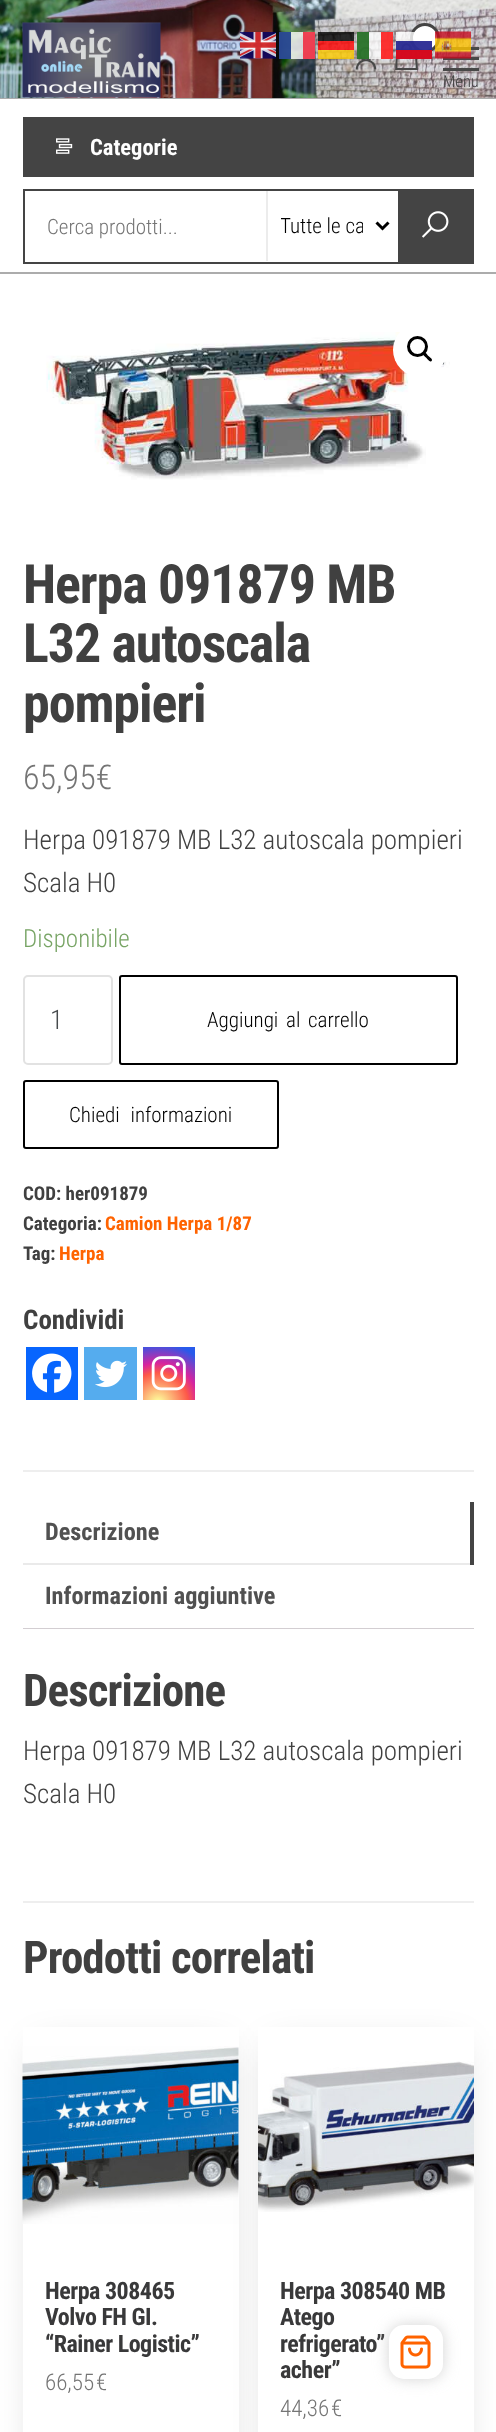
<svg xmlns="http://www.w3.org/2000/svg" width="496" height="2432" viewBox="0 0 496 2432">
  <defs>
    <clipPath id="clip1"><rect x="281" y="212" width="82" height="27"/></clipPath>
    <radialGradient id="g1" gradientUnits="userSpaceOnUse" cx="158" cy="1403" r="67"><stop offset="0" stop-color="rgb(253,244,151)"/><stop offset="0.05" stop-color="rgb(253,244,151)"/><stop offset="0.45" stop-color="rgb(253,89,73)"/><stop offset="0.6" stop-color="rgb(214,36,159)"/><stop offset="0.9" stop-color="rgb(40,90,235)"/></radialGradient>
  </defs>
  <rect width="100%" height="100%" fill="rgb(255,255,255)"/>
  <image x="0" y="0" width="496" height="98" href="pic3.png"/>
  <image x="240" y="32" width="36" height="27" href="pic1.png"/>
  <rect x="279" y="32" width="36" height="27" fill="rgba(255,255,255,0.8)"/>
  <image x="395" y="43" width="23" height="27" href="pic6.png"/>
  <circle cx="425" cy="38" r="13.5" fill="rgb(255,255,255)" stroke="rgb(68,68,68)" stroke-width="3"/>
  <rect x="443" y="47" width="36" height="3" fill="rgb(72,72,72)"/>
  <rect x="443" y="57" width="36" height="3" fill="rgb(72,72,72)"/>
  <image x="435" y="31" width="36" height="28" href="pic2.png"/>
  <rect x="279" y="32" width="12" height="27" fill="rgba(0,38,127,0.8)"/>
  <rect x="303" y="32" width="12" height="27" fill="rgba(243,24,48,0.8)"/>
  <rect x="318" y="32" width="36" height="9" fill="rgba(0,0,0,0.8)"/>
  <image x="355" y="46" width="22" height="24" href="pic5.png"/>
  <rect x="357" y="32" width="36" height="27" fill="rgba(255,255,255,0.8)"/>
  <rect x="318" y="41" width="36" height="9" fill="rgba(255,0,0,0.8)"/>
  <rect x="357" y="32" width="12" height="27" fill="rgba(0,87,0,0.8)"/>
  <rect x="381" y="32" width="12" height="27" fill="rgba(252,0,0,0.8)"/>
  <rect x="396" y="32" width="36" height="27" fill="rgba(255,255,255,0.8)"/>
  <rect x="318" y="50" width="36" height="9" fill="rgba(255,204,0,0.8)"/>
  <rect x="396" y="41" width="36" height="18" fill="rgba(1,1,126,0.8)"/>
  <rect x="396" y="50" width="36" height="9" fill="rgba(254,1,1,0.8)"/>
  <rect x="0" y="98" width="496" height="1" fill="rgb(172,172,172)"/>
  <image x="22" y="22" width="139" height="76" href="pic4.png"/>
  <rect x="443" y="68" width="36" height="3" fill="rgb(72,72,72)"/>
  <text x="443" y="87" font-family="Roboto Condensed" font-size="16.5" font-weight="300" fill="rgb(64,64,64)">Menu</text>
  <rect x="0" y="272" width="496" height="2" fill="rgb(172,172,172)"/>
  <rect x="23" y="117" width="451" height="60" fill="rgb(68,68,68)"/>
  <image x="56" y="138" width="17" height="16" href="pic7.png"/>
  <text x="90" y="155" font-family="Roboto Condensed" font-size="22.5" font-weight="bold" fill="rgb(255,255,255)">Categorie</text>
  <rect x="24" y="190" width="449" height="73" fill="none" stroke="rgb(68,68,68)" stroke-width="2"/>
  <text x="47" y="234" font-family="Roboto Condensed" font-size="21" font-weight="300" fill="rgb(117,117,117)">Cerca prodotti...</text>
  <rect x="266" y="191" width="2" height="70" fill="rgb(236,236,236)"/>
  <path d="M376.5 222.5L382.5 228.5L388.5 222.5" fill="none" stroke="rgb(0,0,0)" stroke-width="3"/>
  <g clip-path="url(#clip1)">
    <text x="280" y="233" font-family="Roboto Condensed" font-size="21" font-weight="300" fill="rgb(0,0,0)">Tutte le ca</text>
  </g>
  <rect x="398" y="191" width="74" height="71" fill="rgb(68,68,68)"/>
  <image x="422" y="211" width="27" height="27" href="pic8.png"/>
  <image x="46" y="332" width="404" height="148" href="pic9.png"/>
  <circle cx="420" cy="350" r="27" fill="rgb(255,255,255)"/>
  <circle cx="417.5" cy="346.5" r="9" fill="none" stroke="rgb(0,0,0)" stroke-width="3"/>
  <path d="M423.5 352.5C425 351 427.5 355 428.5 356C429.5 357 433.5 359.5 431.5 361C430 363 427.5 359 426.5 358C425.5 357 421.5 354.5 423.5 352.5Z" fill="rgb(0,0,0)"/>
  <g font-family="Roboto Condensed" font-size="54" font-weight="bold" letter-spacing="-1.1" fill="rgb(64,64,64)">
    <text>
      <tspan x="23" y="603">Herpa 091879 MB</tspan>
      <tspan x="23" y="662">L32 autoscala</tspan>
      <tspan x="23" y="722">pompieri</tspan>
    </text>
  </g>
  <text x="23" y="789" font-family="Roboto Condensed" font-size="34" font-weight="300" fill="rgb(117,117,117)">65,95€</text>
  <g font-family="Roboto Condensed" font-size="27" font-weight="300" fill="rgb(64,64,64)">
    <text>
      <tspan x="23" y="849">Herpa 091879 MB L32 autoscala pompieri</tspan>
      <tspan x="23" y="892">Scala H0</tspan>
    </text>
  </g>
  <text x="23" y="947" font-family="Roboto Condensed" font-size="25" font-weight="300" fill="rgb(119,164,100)">Disponibile</text>
  <rect x="24" y="976" width="88" height="88" rx="4" fill="none" stroke="rgb(226,226,226)" stroke-width="2"/>
  <text x="50" y="1029" font-family="Roboto Condensed" font-size="27" font-weight="300" fill="rgb(70,74,76)">1</text>
  <rect x="120" y="976" width="337" height="88" rx="2" fill="none" stroke="rgb(0,0,0)" stroke-width="2"/>
  <text x="207" y="1027" word-spacing="3" font-family="Roboto Condensed" font-size="21" font-weight="300" fill="rgb(0,0,0)">Aggiungi al carrello</text>
  <rect x="24" y="1081" width="254" height="67" rx="2" fill="none" stroke="rgb(0,0,0)" stroke-width="2"/>
  <text x="69" y="1122" word-spacing="6" font-family="Roboto Condensed" font-size="21" font-weight="300" fill="rgb(0,0,0)">Chiedi informazioni</text>
  <g font-family="Roboto Condensed" font-size="19" font-weight="bold" fill="rgb(64,64,64)">
    <text>
      <tspan x="23" y="1200">COD: her091879</tspan>
      <tspan x="23" y="1230">Categoria:</tspan>
    </text>
  </g>
  <text x="105" y="1230" font-family="Roboto Condensed" font-size="19" font-weight="bold" fill="rgb(255,99,0)">Camion Herpa 1/87</text>
  <text x="23" y="1260" font-family="Roboto Condensed" font-size="19" font-weight="bold" fill="rgb(64,64,64)">Tag:</text>
  <text x="59" y="1260" font-family="Roboto Condensed" font-size="19" font-weight="bold" fill="rgb(255,99,0)">Herpa</text>
  <text x="23" y="1329" font-family="Roboto Condensed" font-size="27" font-weight="bold" fill="rgb(64,64,64)">Condividi</text>
  <rect x="26" y="1347" width="52" height="53" fill="rgb(7,101,254)"/>
  <image x="32" y="1353" width="40" height="40" href="pic10.png"/>
  <rect x="84" y="1347" width="53" height="53" fill="rgb(85,172,238)"/>
  <image x="95" y="1360" width="32" height="28" href="pic11.png"/>
  <rect x="143" y="1347" width="52" height="53" fill="url(#g1)"/>
  <image x="151" y="1356" width="35" height="35" href="pic12.png"/>
  <rect x="23" y="1470" width="451" height="2" fill="rgb(238,238,238)"/>
  <rect x="23" y="1901" width="451" height="2" fill="rgb(238,238,238)"/>
  <rect x="23" y="1563" width="451" height="2" fill="rgb(234,234,234)"/>
  <text x="45" y="1540" font-family="Roboto Condensed" font-size="24.25" font-weight="bold" fill="rgb(81,81,81)">Descrizione</text>
  <rect x="470" y="1502" width="4" height="63" fill="rgb(68,68,68)"/>
  <text x="45" y="1604" font-family="Roboto Condensed" font-size="24.25" font-weight="bold" fill="rgb(81,81,81)">Informazioni aggiuntive</text>
  <rect x="23" y="1628" width="451" height="1" fill="rgb(211,206,210)"/>
  <text x="23" y="1706" font-family="Roboto Condensed" font-size="45" font-weight="bold" letter-spacing="-0.9" fill="rgb(64,64,64)">Descrizione</text>
  <g font-family="Roboto Condensed" font-size="27" font-weight="300" fill="rgb(64,64,64)">
    <text>
      <tspan x="23" y="1760">Herpa 091879 MB L32 autoscala pompieri</tspan>
      <tspan x="23" y="1803">Scala H0</tspan>
    </text>
  </g>
  <text x="23" y="1973" font-family="Roboto Condensed" font-size="45" font-weight="bold" letter-spacing="-0.9" fill="rgb(64,64,64)">Prodotti correlati</text>
  <rect x="38" y="2049" width="186" height="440" fill="rgba(0,0,0,0.2)" filter="blur(19px)"/>
  <rect x="23" y="2027" width="216" height="405" fill="rgb(255,255,255)"/>
  <image x="22" y="2046" width="217" height="178" href="pic13.png"/>
  <g font-family="Roboto Condensed" font-size="24" font-weight="bold" letter-spacing="-0.5" fill="rgb(57,57,58)">
    <text>
      <tspan x="45" y="2299">Herpa 308465</tspan>
      <tspan x="45" y="2325">Volvo FH GI.</tspan>
      <tspan x="45" y="2352">“Rainer Logistic”</tspan>
    </text>
  </g>
  <g font-family="Roboto Condensed" font-size="23" font-weight="300" fill="rgb(117,117,117)">
    <text x="45" y="2390">66,55</text>
    <text x="96" y="2390">€</text>
  </g>
  <rect x="273" y="2049" width="186" height="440" fill="rgba(0,0,0,0.2)" filter="blur(19px)"/>
  <rect x="258" y="2027" width="216" height="405" fill="rgb(255,255,255)"/>
  <image x="258" y="2061" width="216" height="151" href="pic14.png"/>
  <g font-family="Roboto Condensed" font-size="24" font-weight="bold" letter-spacing="-0.5" fill="rgb(57,57,58)">
    <text>
      <tspan x="280" y="2299">Herpa 308540 MB</tspan>
      <tspan x="280" y="2325">Atego</tspan>
      <tspan x="280" y="2352">refrigerato”</tspan>
      <tspan x="280" y="2378">acher”</tspan>
    </text>
  </g>
  <g font-family="Roboto Condensed" font-size="23" font-weight="300" fill="rgb(117,117,117)">
    <text x="280" y="2416">44,36</text>
    <text x="331" y="2416">€</text>
  </g>
  <rect x="389" y="2325" width="54" height="54" rx="15" fill="rgba(183,183,183,0.6)" filter="blur(7.5px)"/>
  <rect x="389" y="2325" width="54" height="54" rx="15" fill="rgb(255,255,255)"/>
  <image x="400" y="2335" width="31" height="34" href="pic15.png"/>
</svg>
